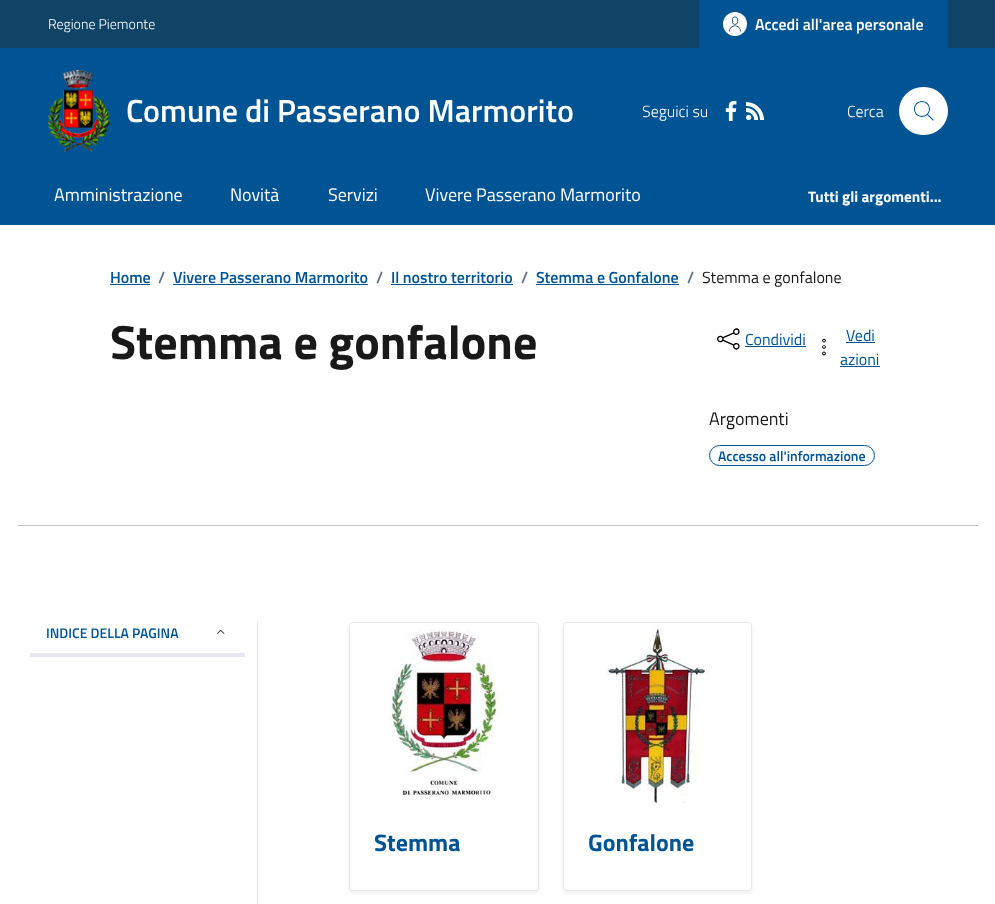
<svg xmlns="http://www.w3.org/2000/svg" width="995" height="904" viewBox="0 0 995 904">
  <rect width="100%" height="100%" fill="rgb(255,255,255)"/>
  <rect x="0" y="0" width="995" height="48" fill="rgb(16,68,103)"/>
  <text x="48" y="29" font-family="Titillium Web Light" font-size="14" font-weight="300" fill="rgb(255,255,255)">Regione Piemonte</text>
  <rect x="699" y="0" width="249" height="48" fill="rgb(0,84,147)"/>
  <circle cx="735" cy="24" r="12" fill="rgb(255,255,255)"/>
  <image x="729" y="16" width="12" height="16" href="pic1.png"/>
  <text x="755" y="30" font-family="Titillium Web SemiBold" font-size="16" font-weight="600" fill="rgb(255,255,255)">Accedi all'area personale</text>
  <rect x="0" y="48" width="995" height="177" fill="rgb(0,84,147)"/>
  <image x="48" y="70" width="63" height="82" href="pic2.png"/>
  <text x="126" y="122" font-family="Titillium Web SemiBold" font-size="32" font-weight="600" fill="rgb(255,255,255)">Comune di Passerano Marmorito</text>
  <text x="642" y="117" font-family="Titillium Web Light" font-size="16" font-weight="300" fill="rgb(255,255,255)">Seguici su</text>
  <image x="725" y="101" width="12" height="20" href="pic3.png"/>
  <image x="746" y="102" width="18" height="18" href="pic4.png"/>
  <text x="847" y="117" font-family="Titillium Web Light" font-size="16" font-weight="300" fill="rgb(255,255,255)">Cerca</text>
  <rect x="899" y="87" width="49" height="48" rx="24" fill="rgb(255,255,255)"/>
  <image x="914" y="101" width="20" height="20" href="pic5.png"/>
  <g font-family="Titillium Web" font-size="18" fill="rgb(255,255,255)">
    <text x="54" y="201">Amministrazione</text>
    <text x="230" y="201">Novità</text>
    <text x="328" y="201">Servizi</text>
    <text x="425" y="201">Vivere Passerano Marmorito</text>
  </g>
  <text x="808" y="202" font-family="Titillium Web" font-size="15.25" font-weight="bold" fill="rgb(255,255,255)">Tutti gli argomenti...</text>
  <text x="110" y="283" font-family="Titillium Web SemiBold" font-size="16" font-weight="600" fill="rgb(0,84,147)">Home</text>
  <rect x="110" y="284" width="40" height="1" fill="rgb(0,84,147)"/>
  <text x="158" y="283" font-family="Titillium Web SemiBold" font-size="16" font-weight="600" fill="rgb(93,112,131)">/</text>
  <text x="173" y="283" font-family="Titillium Web SemiBold" font-size="16" font-weight="600" fill="rgb(0,84,147)">Vivere Passerano Marmorito</text>
  <rect x="173" y="284" width="195" height="1" fill="rgb(0,84,147)"/>
  <text x="376" y="283" font-family="Titillium Web SemiBold" font-size="16" font-weight="600" fill="rgb(93,112,131)">/</text>
  <text x="391" y="283" font-family="Titillium Web SemiBold" font-size="16" font-weight="600" fill="rgb(0,84,147)">Il nostro territorio</text>
  <rect x="391" y="284" width="122" height="1" fill="rgb(0,84,147)"/>
  <text x="521" y="283" font-family="Titillium Web SemiBold" font-size="16" font-weight="600" fill="rgb(93,112,131)">/</text>
  <text x="536" y="283" font-family="Titillium Web SemiBold" font-size="16" font-weight="600" fill="rgb(0,84,147)">Stemma e Gonfalone</text>
  <rect x="536" y="284" width="143" height="1" fill="rgb(0,84,147)"/>
  <text x="687" y="283" font-family="Titillium Web SemiBold" font-size="16" font-weight="600" fill="rgb(93,112,131)">/</text>
  <text x="702" y="283" font-family="Titillium Web" font-size="16" fill="rgb(25,25,25)">Stemma e gonfalone</text>
  <text x="110" y="359" font-family="Titillium Web" font-size="48" font-weight="bold" fill="rgb(25,25,25)">Stemma e gonfalone</text>
  <image x="717" y="328" width="23" height="22" href="pic6.png"/>
  <text x="745" y="345" font-family="Titillium Web" font-size="16" fill="rgb(0,84,147)">Condividi</text>
  <rect x="745" y="346" width="61" height="1" fill="rgb(0,84,147)"/>
  <image x="822" y="338" width="4" height="18" href="pic7.png"/>
  <text x="846" y="341" font-family="Titillium Web" font-size="16" fill="rgb(0,84,147)">Vedi</text>
  <rect x="846" y="342" width="29" height="1" fill="rgb(0,84,147)"/>
  <text x="840" y="365" font-family="Titillium Web" font-size="16" fill="rgb(0,84,147)">azioni</text>
  <rect x="840" y="366" width="40" height="1" fill="rgb(0,84,147)"/>
  <text x="709" y="425" font-family="Titillium Web" font-size="18" fill="rgb(25,25,25)">Argomenti</text>
  <rect x="709.5" y="445.5" width="165" height="20" rx="10" fill="none" stroke="rgb(0,84,147)"/>
  <text x="718" y="461" font-family="Titillium Web SemiBold" font-size="14" font-weight="600" fill="rgb(0,84,147)">Accesso all'informazione</text>
  <rect x="18" y="525" width="960" height="1" fill="rgb(198,198,198)"/>
  <rect x="257" y="622" width="1" height="282" fill="rgb(229,229,229)"/>
  <text x="46" y="638" font-family="Titillium Web SemiBold" font-size="14" font-weight="600" fill="rgb(0,84,147)">INDICE DELLA PAGINA</text>
  <image x="217" y="629" width="8" height="5" href="pic8.png"/>
  <rect x="30" y="653" width="215" height="4" fill="rgb(233,230,242)"/>
  <rect x="349" y="624" width="190" height="269" rx="4" fill="rgba(0,0,0,0.07)" filter="blur(2px)"/>
  <rect x="349.5" y="622.5" width="189" height="268" rx="3.5" fill="none" stroke="rgb(233,230,242)"/>
  <rect x="350" y="623" width="188" height="267" rx="4" fill="rgb(255,255,255)"/>
  <image x="389" y="629" width="115" height="167" href="pic9.png"/>
  <text x="374" y="851" font-family="Titillium Web" font-size="24" font-weight="bold" fill="rgb(0,84,147)">Stemma</text>
  <rect x="563" y="624" width="189" height="269" rx="4" fill="rgba(0,0,0,0.07)" filter="blur(2px)"/>
  <rect x="563.5" y="622.5" width="188" height="268" rx="3.5" fill="none" stroke="rgb(233,230,242)"/>
  <rect x="564" y="623" width="187" height="267" rx="4" fill="rgb(255,255,255)"/>
  <image x="606" y="628" width="103" height="175" href="pic10.png"/>
  <text x="588" y="851" font-family="Titillium Web" font-size="24" font-weight="bold" fill="rgb(0,84,147)">Gonfalone</text>
</svg>
